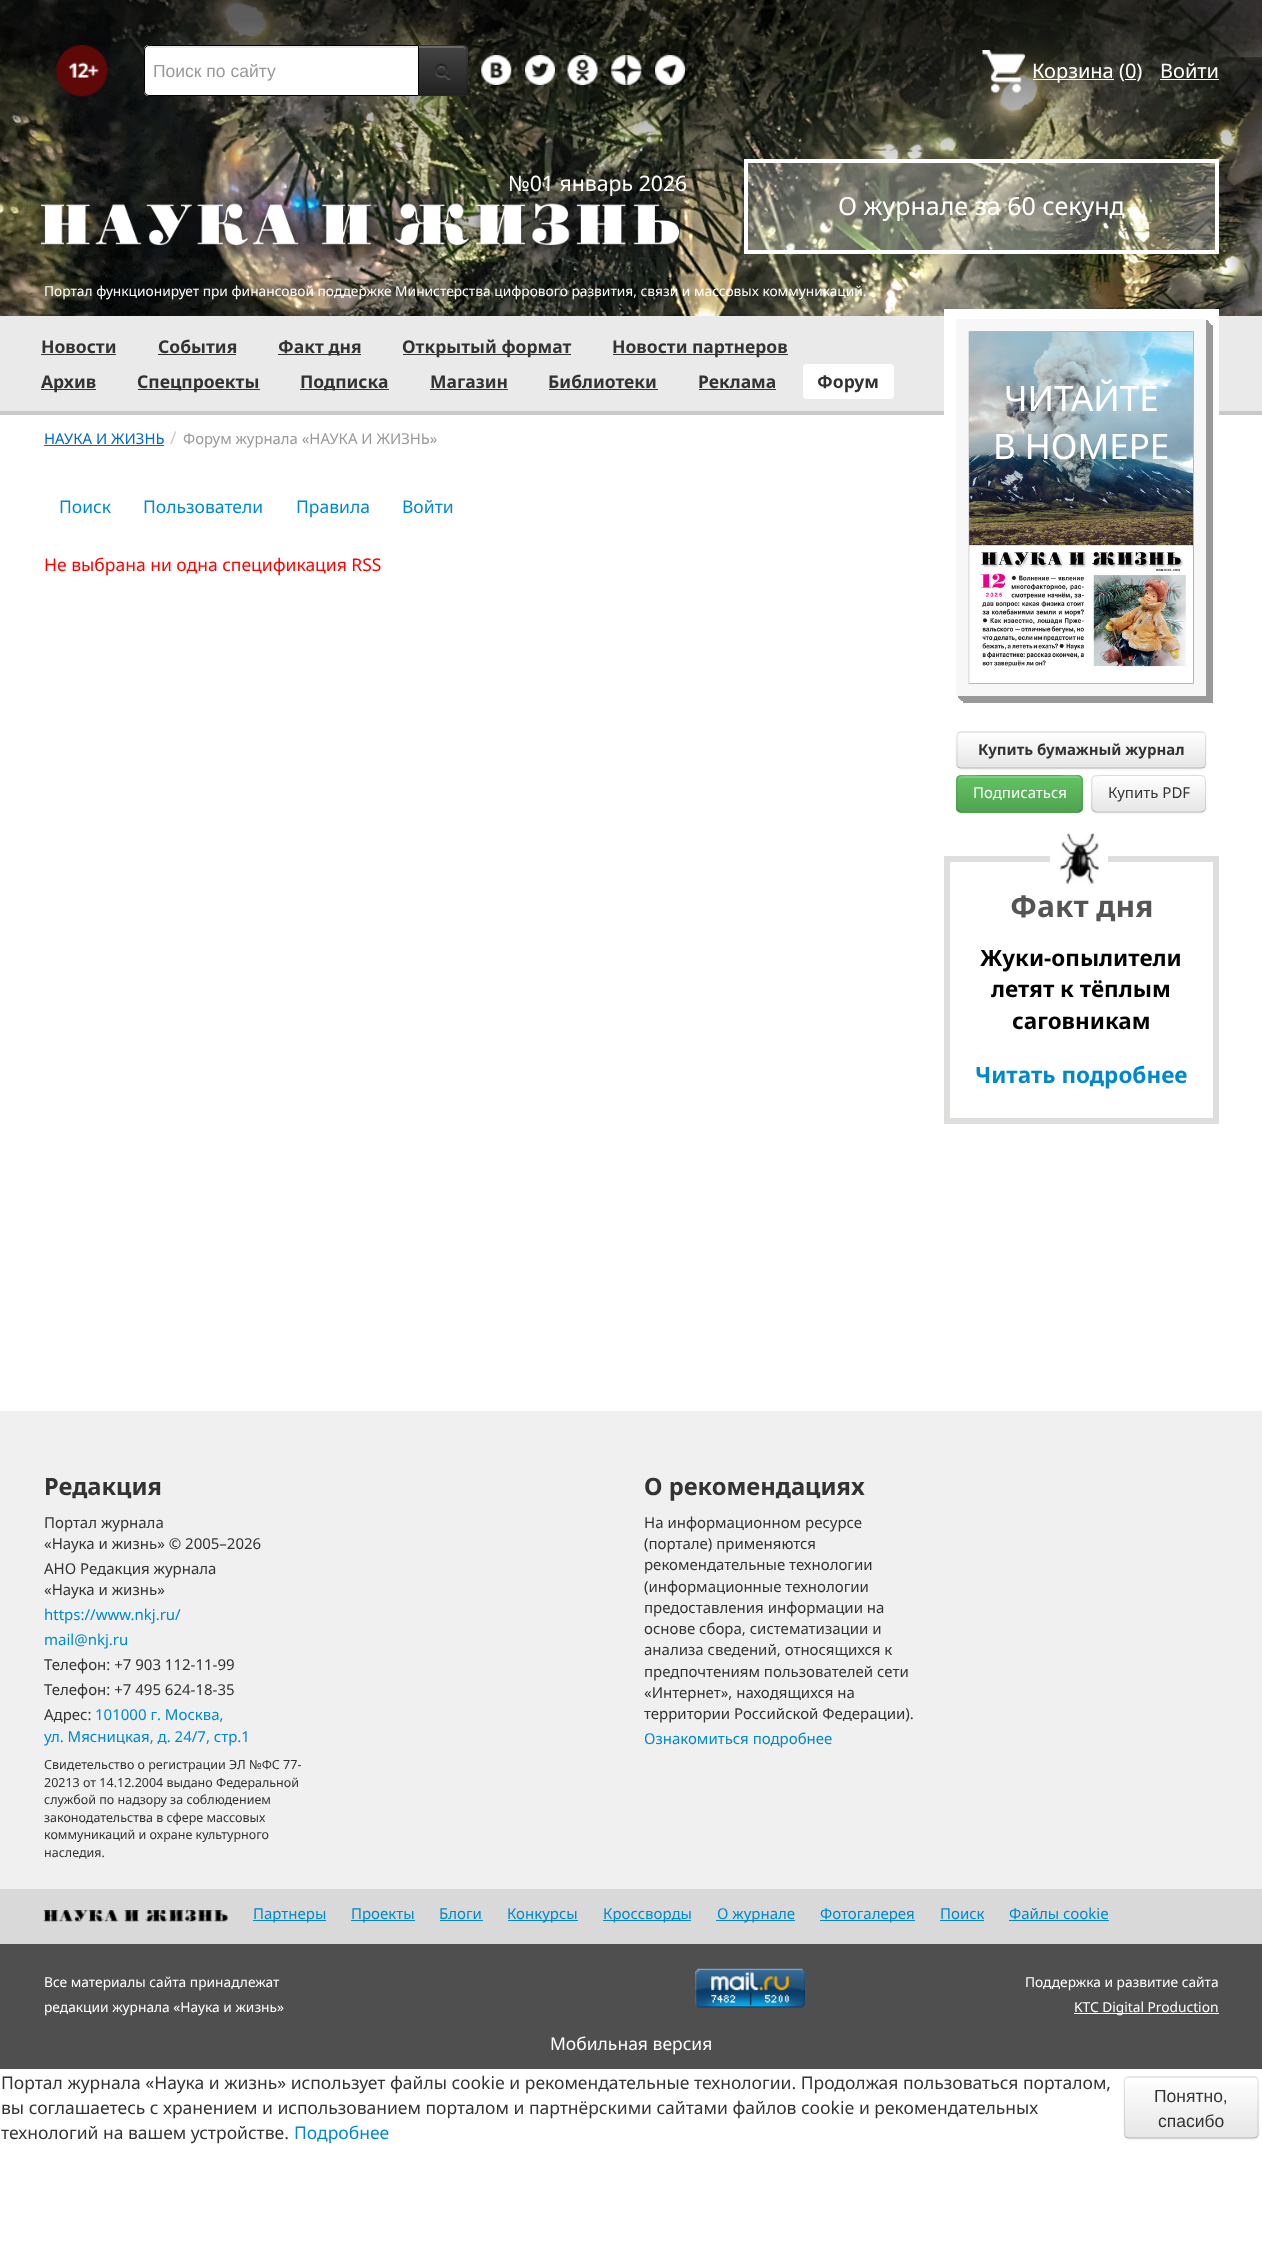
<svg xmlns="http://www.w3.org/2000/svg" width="1262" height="2242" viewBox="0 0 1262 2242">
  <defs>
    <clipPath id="clip1"><path d="M418 45H463C466 45 468 47 468 50V91C468 94 466 96 463 96H418Z"/></clipPath>
    <linearGradient id="g1" gradientUnits="userSpaceOnUse" x1="443" y1="46" x2="443" y2="95"><stop offset="0" stop-color="rgb(68,68,68)"/><stop offset="1" stop-color="rgb(34,34,34)"/></linearGradient>
    <clipPath id="clip2"><rect x="956" y="731" width="250" height="38" rx="5"/></clipPath>
    <linearGradient id="g2" gradientUnits="userSpaceOnUse" x1="1081" y1="733" x2="1081" y2="768"><stop offset="0" stop-color="rgb(255,255,255)"/><stop offset="1" stop-color="rgb(230,230,230)"/></linearGradient>
    <clipPath id="clip3"><rect x="956" y="775" width="127" height="38" rx="5"/></clipPath>
    <linearGradient id="g3" gradientUnits="userSpaceOnUse" x1="1019" y1="776" x2="1019" y2="811"><stop offset="0" stop-color="rgb(98,196,98)"/><stop offset="1" stop-color="rgb(81,163,81)"/></linearGradient>
    <clipPath id="clip4"><rect x="1091" y="775" width="115" height="38" rx="5"/></clipPath>
    <linearGradient id="g4" gradientUnits="userSpaceOnUse" x1="1149" y1="776" x2="1149" y2="811"><stop offset="0" stop-color="rgb(255,255,255)"/><stop offset="1" stop-color="rgb(230,230,230)"/></linearGradient>
    <clipPath id="clip5"><rect x="1124" y="2076" width="135" height="63" rx="5"/></clipPath>
    <linearGradient id="g5" gradientUnits="userSpaceOnUse" x1="1191" y1="2078" x2="1191" y2="2138"><stop offset="0" stop-color="rgb(255,255,255)"/><stop offset="1" stop-color="rgb(230,230,230)"/></linearGradient>
  </defs>
  <rect width="100%" height="100%" fill="rgb(255,255,255)"/>
  <image x="0" y="0" width="1262" height="316" href="pic1.png"/>
  <rect x="0" y="0" width="1262" height="20" fill="rgba(0,0,0,0.64)"/>
  <image x="0" y="20" width="1262" height="187" href="pic2.png"/>
  <image x="56" y="45" width="52" height="52" href="pic3.png"/>
  <path d="M418 45H463C466 45 468 47 468 50V91C468 94 466 96 463 96H418Z" fill="rgb(54,54,54)"/>
  <g clip-path="url(#clip1)">
    <rect x="419" y="46" width="49" height="49" fill="url(#g1)"/>
  </g>
  <path d="M419 48H462C465 48 466 49 466 51V50C466 48 464 46 462 46H419Z" fill="rgb(105,105,105)"/>
  <path d="M418 45L419 46H462C464 46 465 47 465 47L466 46C465 46 464 45 462 45Z" fill="rgba(0,0,0,0.1)"/>
  <path d="M468 93L466 95L465 94C466 93 466 92 466 91V50L465 47L466 46L468 48Z" fill="rgba(0,0,0,0.1)"/>
  <path d="M466 95C465 96 463 96 462 96H418L419 95H462C463 95 464 95 465 94Z" fill="rgba(0,0,0,0.25)"/>
  <path d="M149 45H419V96H149C146 96 144 94 144 91V50C144 47 146 45 149 45Z" fill="rgb(255,255,255)"/>
  <path d="M149 48H418V46H149C146 46 145 48 145 51C145 49 147 48 149 48Z" fill="rgb(236,236,236)"/>
  <path d="M149 45.5H418.5V95.5H149C146.5 95.5 144.5 93.5 144.5 91V50C144.5 47.5 146.5 45.5 149 45.5Z" fill="none" stroke="rgb(0,0,0)"/>
  <text x="153" y="77" font-family="Liberation Sans" font-size="17.5" fill="rgb(153,153,153)">Поиск по сайту</text>
  <image x="435" y="63" width="16" height="17" href="pic4.png"/>
  <image x="481" y="55" width="31" height="30" href="pic5.png"/>
  <image x="525" y="55" width="30" height="30" href="pic6.png"/>
  <image x="567" y="55" width="31" height="30" href="pic7.png"/>
  <image x="611" y="55" width="31" height="30" href="pic8.png"/>
  <image x="655" y="55" width="30" height="30" href="pic9.png"/>
  <image x="982" y="50" width="43" height="43" href="pic10.png"/>
  <rect x="1033" y="79" width="81" height="1" fill="rgb(255,255,255)"/>
  <text x="1032" y="78" font-family="Noto Sans" font-size="20" fill="rgb(255,255,255)">Корзина (0)</text>
  <rect x="1125" y="79" width="11" height="1" fill="rgb(255,255,255)"/>
  <text x="1160" y="78" font-family="Noto Sans" font-size="20" fill="rgb(255,255,255)">Войти</text>
  <rect x="1160" y="79" width="59" height="1" fill="rgb(255,255,255)"/>
  <text x="508" y="191" font-family="Noto Sans" font-size="21.25" fill="rgb(255,255,255)">№01 январь 2026</text>
  <image x="30" y="190" width="657" height="68" href="pic11.png"/>
  <rect x="746" y="161" width="471" height="91" fill="rgba(255,255,255,0.25)" stroke="rgb(255,255,255)" stroke-width="4"/>
  <text x="838" y="215" font-family="Noto Sans" font-size="25" fill="rgb(255,255,255)">О журнале за 60 секунд</text>
  <text x="44" y="296" font-family="Noto Sans" font-size="13.75" fill="rgb(255,255,255)">Портал функционирует при финансовой поддержке Министерства цифрового развития, связи и массовых коммуникаций.</text>
  <rect x="0" y="316" width="1262" height="95" fill="rgb(234,234,234)"/>
  <rect x="0" y="411" width="1262" height="4" fill="rgb(201,201,201)"/>
  <text x="41" y="353" font-family="Noto Sans" font-size="17.5" font-weight="bold" fill="rgb(51,51,51)">Новости</text>
  <rect x="41" y="354" width="75" height="1" fill="rgb(51,51,51)"/>
  <text x="158" y="353" font-family="Noto Sans" font-size="17.5" font-weight="bold" fill="rgb(51,51,51)">События</text>
  <rect x="158" y="354" width="78" height="1" fill="rgb(51,51,51)"/>
  <rect x="278" y="354" width="83" height="1" fill="rgb(51,51,51)"/>
  <text x="278" y="353" font-family="Noto Sans" font-size="17.5" font-weight="bold" fill="rgb(51,51,51)">Факт дня</text>
  <rect x="403" y="354" width="168" height="1" fill="rgb(51,51,51)"/>
  <text x="402" y="353" font-family="Noto Sans" font-size="17.5" font-weight="bold" fill="rgb(51,51,51)">Открытый формат</text>
  <rect x="613" y="354" width="175" height="1" fill="rgb(51,51,51)"/>
  <text x="612" y="353" font-family="Noto Sans" font-size="17.5" font-weight="bold" fill="rgb(51,51,51)">Новости партнеров</text>
  <rect x="41" y="389" width="55" height="1" fill="rgb(51,51,51)"/>
  <text x="41" y="388" font-family="Noto Sans" font-size="17.5" font-weight="bold" fill="rgb(51,51,51)">Архив</text>
  <rect x="138" y="389" width="122" height="1" fill="rgb(51,51,51)"/>
  <text x="137" y="388" font-family="Noto Sans" font-size="17.5" font-weight="bold" fill="rgb(51,51,51)">Спецпроекты</text>
  <rect x="300" y="389" width="89" height="1" fill="rgb(51,51,51)"/>
  <g font-family="Noto Sans" font-size="17.5" font-weight="bold" fill="rgb(51,51,51)">
    <text x="300" y="388">Подписка</text>
    <text x="430" y="388">Магазин</text>
  </g>
  <rect x="430" y="389" width="78" height="1" fill="rgb(51,51,51)"/>
  <text x="548" y="388" font-family="Noto Sans" font-size="17.5" font-weight="bold" fill="rgb(51,51,51)">Библиотеки</text>
  <rect x="549" y="389" width="109" height="1" fill="rgb(51,51,51)"/>
  <text x="698" y="388" font-family="Noto Sans" font-size="17.5" font-weight="bold" fill="rgb(51,51,51)">Реклама</text>
  <rect x="699" y="389" width="77" height="1" fill="rgb(51,51,51)"/>
  <rect x="803" y="364" width="91" height="35" rx="4" fill="rgb(255,255,255)"/>
  <text x="817" y="388" font-family="Noto Sans" font-size="17.5" font-weight="bold" fill="rgb(51,51,51)">Форум</text>
  <text x="44" y="444" font-family="Noto Sans" font-size="14.9" fill="rgb(0,102,204)">НАУКА И ЖИЗНЬ</text>
  <rect x="44" y="445" width="120" height="1" fill="rgb(0,102,204)"/>
  <text x="170" y="444" font-family="Noto Sans" font-size="17.5" fill="rgb(204,204,204)">/</text>
  <text x="183" y="444" font-family="Noto Sans" font-size="14.9" fill="rgb(153,153,153)">Форум журнала «НАУКА И ЖИЗНЬ»</text>
  <g font-family="Noto Sans" font-size="17.5" fill="rgb(0,136,204)">
    <text x="59" y="513">Поиск</text>
    <text x="143" y="513">Пользователи</text>
    <text x="296" y="513">Правила</text>
    <text x="402" y="513">Войти</text>
  </g>
  <text x="44" y="571" font-family="Noto Sans" font-size="17.5" fill="rgb(255,0,0)">Не выбрана ни одна спецификация RSS</text>
  <rect x="944" y="309" width="275" height="106" fill="rgb(255,255,255)"/>
  <path d="M963 696V703H1213V325H1206V696Z" fill="rgb(153,153,153)"/>
  <path d="M961 696V701H1211V324H1206V696Z" fill="rgb(153,153,153)"/>
  <path d="M960 696V700H1210V323H1206V696Z" fill="rgb(153,153,153)"/>
  <path d="M959 696V699H1209V321H1206V696Z" fill="rgb(153,153,153)"/>
  <path d="M958 696V698H1208V320H1206V696Z" fill="rgb(153,153,153)"/>
  <rect x="956" y="319" width="250" height="377" fill="rgb(247,247,247)"/>
  <image x="968" y="331" width="226" height="353" href="pic12.png"/>
  <g font-family="Noto Sans" font-size="35" fill="rgb(255,255,255)">
    <text x="1004" y="411">ЧИТАЙТЕ</text>
    <text x="993" y="459">В НОМЕРЕ</text>
  </g>
  <rect x="956" y="733" width="250" height="37" rx="5" fill="rgba(0,0,0,0.05)" filter="blur(1px)"/>
  <rect x="956" y="731" width="250" height="38" rx="5" fill="rgb(245,245,245)"/>
  <g clip-path="url(#clip2)">
    <rect x="956" y="733" width="250" height="35" fill="url(#g2)"/>
  </g>
  <path d="M1204.5 767C1203.5 767.5 1202.5 768 1201 768H961C960 768 959 767.5 958 767" fill="none" stroke="rgb(179,179,179)" stroke-width="1.2"/>
  <path d="M958 767C957.5 766 957 765 957 764V736C957 735 957.5 734 958 733C959 732.5 960 732 961 732H1201C1202.5 732 1203.5 732.5 1204.5 733C1205 734 1205.5 735 1205.5 736V764C1205.5 765 1205 766 1204.5 767" fill="none" stroke="rgba(0,0,0,0.1)" stroke-width="1.2"/>
  <text x="978" y="755" font-family="Noto Sans" font-size="15" font-weight="bold" fill="rgb(51,51,51)">Купить бумажный журнал</text>
  <rect x="956" y="776" width="127" height="38" rx="5" fill="rgba(0,0,0,0.05)" filter="blur(1px)"/>
  <rect x="956" y="775" width="127" height="38" rx="5" fill="rgb(91,183,91)"/>
  <g clip-path="url(#clip3)">
    <rect x="956" y="776" width="127" height="35" fill="url(#g3)"/>
  </g>
  <path d="M961 778H1078C1080 778 1081 779 1081 781C1081 771 1061 776 1058 776H981C978 776 958 771 958 781C958 779 959 778 961 778Z" fill="rgba(255,255,255,0.2)"/>
  <path d="M1080.5 810.5L1078 812H980.5H961L958 810.5" fill="none" stroke="rgba(0,0,0,0.25)" stroke-width="1.2"/>
  <path d="M958 810.5C955.5 808 957 801.5 957 798.5C957 771.5 952.5 775.5 980.5 775.5H1058C1086.5 775.5 1082 771.5 1082 798.5C1082 801.5 1083.5 808 1080.5 810.5" fill="none" stroke="rgba(0,0,0,0.1)" stroke-width="1.2"/>
  <text x="973" y="798" font-family="Noto Sans" font-size="15" fill="rgb(255,255,255)">Подписаться</text>
  <rect x="1091" y="776" width="115" height="38" rx="5" fill="rgba(0,0,0,0.05)" filter="blur(1px)"/>
  <rect x="1091" y="775" width="115" height="38" rx="5" fill="rgb(245,245,245)"/>
  <g clip-path="url(#clip4)">
    <rect x="1091" y="776" width="115" height="35" fill="url(#g4)"/>
  </g>
  <path d="M1204.5 810.5L1201.5 812H1096L1093 810.5" fill="none" stroke="rgb(179,179,179)" stroke-width="1.2"/>
  <path d="M1093 810.5C1090.5 808 1092 801.5 1092 798.5C1092 772 1087 775.5 1114 775.5H1184C1208 775.5 1205.5 771.5 1205.5 794V803C1205.5 805.5 1206.5 808.5 1204.5 810.5" fill="none" stroke="rgba(0,0,0,0.1)" stroke-width="1.2"/>
  <text x="1108" y="798" font-family="Noto Sans" font-size="15" fill="rgb(51,51,51)">Купить PDF</text>
  <rect x="947" y="859" width="269" height="262" fill="none" stroke="rgb(222,222,221)" stroke-width="6"/>
  <rect x="1050" y="856" width="58" height="6" fill="rgb(255,255,255)"/>
  <image x="1060" y="833" width="39" height="51" href="pic13.png"/>
  <text x="1010" y="917" font-family="Noto Sans" font-size="30" font-weight="bold" fill="rgb(85,85,85)">Факт дня</text>
  <g font-family="Noto Sans" font-size="22.5" font-weight="bold" fill="rgb(0,0,0)">
    <text x="980" y="966">Жуки-опылители</text>
    <text x="991" y="997">летят к тёплым</text>
    <text x="1012" y="1029">саговникам</text>
  </g>
  <text x="975" y="1083" font-family="Noto Sans" font-size="22.5" font-weight="bold" fill="rgb(0,136,204)">Читать подробнее</text>
  <rect x="0" y="1411" width="1262" height="478" fill="rgb(240,240,240)"/>
  <text x="44" y="1495" font-family="Noto Sans" font-size="23.75" font-weight="bold" fill="rgb(51,51,51)">Редакция</text>
  <g font-family="Noto Sans" font-size="15" fill="rgb(51,51,51)">
    <text>
      <tspan x="44" y="1528">Портал журнала</tspan>
      <tspan x="44" y="1549">«Наука и жизнь» © 2005–2026</tspan>
      <tspan x="44" y="1574">АНО Редакция журнала</tspan>
      <tspan x="44" y="1595">«Наука и жизнь»</tspan>
    </text>
  </g>
  <g font-family="Noto Sans" font-size="15" fill="rgb(0,136,204)">
    <text>
      <tspan x="44" y="1620">https://www.nkj.ru/</tspan>
      <tspan x="44" y="1645">mail@nkj.ru</tspan>
    </text>
  </g>
  <g font-family="Noto Sans" font-size="15" fill="rgb(51,51,51)">
    <text>
      <tspan x="44" y="1670">Телефон: +7 903 112-11-99</tspan>
      <tspan x="44" y="1695">Телефон: +7 495 624-18-35</tspan>
      <tspan x="44" y="1720">Адрес:</tspan>
    </text>
  </g>
  <g font-family="Noto Sans" font-size="15" fill="rgb(0,136,204)">
    <text x="95" y="1720">101000 г. Москва,</text>
    <text x="44" y="1742">ул. Мясницкая, д. 24/7, стр.1</text>
  </g>
  <g font-family="Noto Sans" font-size="12.5" fill="rgb(51,51,51)">
    <text>
      <tspan x="44" y="1769">Свидетельство о регистрации ЭЛ №ФС 77-</tspan>
      <tspan x="44" y="1787">20213 от 14.12.2004 выдано Федеральной</tspan>
      <tspan x="44" y="1804">службой по надзору за соблюдением</tspan>
      <tspan x="44" y="1822">законодательства в сфере массовых</tspan>
      <tspan x="44" y="1839">коммуникаций и охране культурного</tspan>
      <tspan x="44" y="1857">наследия.</tspan>
    </text>
  </g>
  <text x="644" y="1495" font-family="Noto Sans" font-size="23.75" font-weight="bold" fill="rgb(51,51,51)">О рекомендациях</text>
  <g font-family="Noto Sans" font-size="15" fill="rgb(51,51,51)">
    <text>
      <tspan x="644" y="1528">На информационном ресурсе</tspan>
      <tspan x="644" y="1549">(портале) применяются</tspan>
      <tspan x="644" y="1570">рекомендательные технологии</tspan>
      <tspan x="644" y="1592">(информационные технологии</tspan>
      <tspan x="644" y="1613">предоставления информации на</tspan>
      <tspan x="644" y="1634">основе сбора, систематизации и</tspan>
      <tspan x="644" y="1655">анализа сведений, относящихся к</tspan>
      <tspan x="644" y="1677">предпочтениям пользователей сети</tspan>
      <tspan x="644" y="1698">«Интернет», находящихся на</tspan>
      <tspan x="644" y="1719">территории Российской Федерации).</tspan>
    </text>
  </g>
  <text x="644" y="1744" font-family="Noto Sans" font-size="15" fill="rgb(0,136,204)">Ознакомиться подробнее</text>
  <rect x="0" y="1889" width="1262" height="55" fill="rgb(217,217,217)"/>
  <image x="43" y="1910" width="185" height="12" href="pic14.png"/>
  <rect x="253" y="1920" width="73" height="1" fill="rgb(0,136,204)"/>
  <text x="253" y="1919" font-family="Noto Sans" font-size="15" fill="rgb(0,136,204)">Партнеры</text>
  <rect x="351" y="1920" width="64" height="1" fill="rgb(0,136,204)"/>
  <g font-family="Noto Sans" font-size="15" fill="rgb(0,136,204)">
    <text x="351" y="1919">Проекты</text>
    <text x="439" y="1919">Блоги</text>
  </g>
  <rect x="440" y="1920" width="43" height="1" fill="rgb(0,136,204)"/>
  <rect x="508" y="1920" width="70" height="1" fill="rgb(0,136,204)"/>
  <text x="507" y="1919" font-family="Noto Sans" font-size="15" fill="rgb(0,136,204)">Конкурсы</text>
  <rect x="603" y="1920" width="88" height="1" fill="rgb(0,136,204)"/>
  <text x="603" y="1919" font-family="Noto Sans" font-size="15" fill="rgb(0,136,204)">Кроссворды</text>
  <rect x="716" y="1920" width="79" height="1" fill="rgb(0,136,204)"/>
  <text x="717" y="1919" font-family="Noto Sans" font-size="15" fill="rgb(0,136,204)">О журнале</text>
  <rect x="820" y="1920" width="95" height="1" fill="rgb(0,136,204)"/>
  <g font-family="Noto Sans" font-size="15" fill="rgb(0,136,204)">
    <text x="820" y="1919">Фотогалерея</text>
    <text x="940" y="1919">Поиск</text>
  </g>
  <rect x="940" y="1920" width="44" height="1" fill="rgb(0,136,204)"/>
  <text x="1009" y="1919" font-family="Noto Sans" font-size="15" fill="rgb(0,136,204)">Файлы cookie</text>
  <rect x="1009" y="1920" width="100" height="1" fill="rgb(0,136,204)"/>
  <rect x="0" y="1944" width="1262" height="125" fill="rgb(80,79,79)"/>
  <g font-family="Noto Sans" font-size="13.75" fill="rgb(255,255,255)">
    <text>
      <tspan x="44" y="1987">Все материалы сайта принадлежат</tspan>
      <tspan x="44" y="2012">редакции журнала «Наука и жизнь»</tspan>
    </text>
  </g>
  <image x="695" y="1968" width="110" height="40" href="pic15.png"/>
  <text x="1025" y="1987" font-family="Noto Sans" font-size="13.75" fill="rgb(255,255,255)">Поддержка и развитие сайта</text>
  <rect x="1074" y="2013" width="145" height="1" fill="rgb(255,255,255)"/>
  <text x="1074" y="2012" font-family="Noto Sans" font-size="13.75" fill="rgb(255,255,255)">KTC Digital Production</text>
  <text x="550" y="2050" font-family="Noto Sans" font-size="17.5" fill="rgb(255,255,255)">Мобильная версия</text>
  <g font-family="Noto Sans" font-size="17.5" fill="rgb(51,51,51)">
    <text>
      <tspan x="1" y="2089">Портал журнала «Наука и жизнь» использует файлы cookie и рекомендательные технологии. Продолжая пользоваться порталом,</tspan>
      <tspan x="1" y="2114">вы соглашаетесь с хранением и использованием порталом и партнёрскими сайтами файлов cookie и рекомендательных</tspan>
      <tspan x="1" y="2139">технологий на вашем устройстве.</tspan>
    </text>
  </g>
  <text x="294" y="2139" font-family="Noto Sans" font-size="17.5" fill="rgb(0,136,204)">Подробнее</text>
  <rect x="1124" y="2078" width="135" height="62" rx="5" fill="rgba(0,0,0,0.05)" filter="blur(1px)"/>
  <rect x="1124" y="2076" width="135" height="63" rx="5" fill="rgb(245,245,245)"/>
  <g clip-path="url(#clip5)">
    <rect x="1124" y="2078" width="135" height="60" fill="url(#g5)"/>
  </g>
  <path d="M1257 2137L1254 2138H1149.5H1129L1125.5 2137" fill="none" stroke="rgb(179,179,179)" stroke-width="1.2"/>
  <path d="M1125.5 2137C1125 2136 1124.5 2135 1124.5 2134V2081C1124.5 2080 1125 2079 1125.5 2078C1126.5 2077.5 1127.5 2077 1129 2077H1254C1255 2077 1256 2077.5 1257 2078C1257.5 2079 1258 2080 1258 2081V2134C1258 2135 1257.5 2136 1257 2137" fill="none" stroke="rgba(0,0,0,0.1)" stroke-width="1.2"/>
  <g font-family="Liberation Sans" font-size="17.5" fill="rgb(51,51,51)">
    <text x="1154" y="2102">Понятно,</text>
    <text x="1158" y="2127">спасибо</text>
  </g>
</svg>
